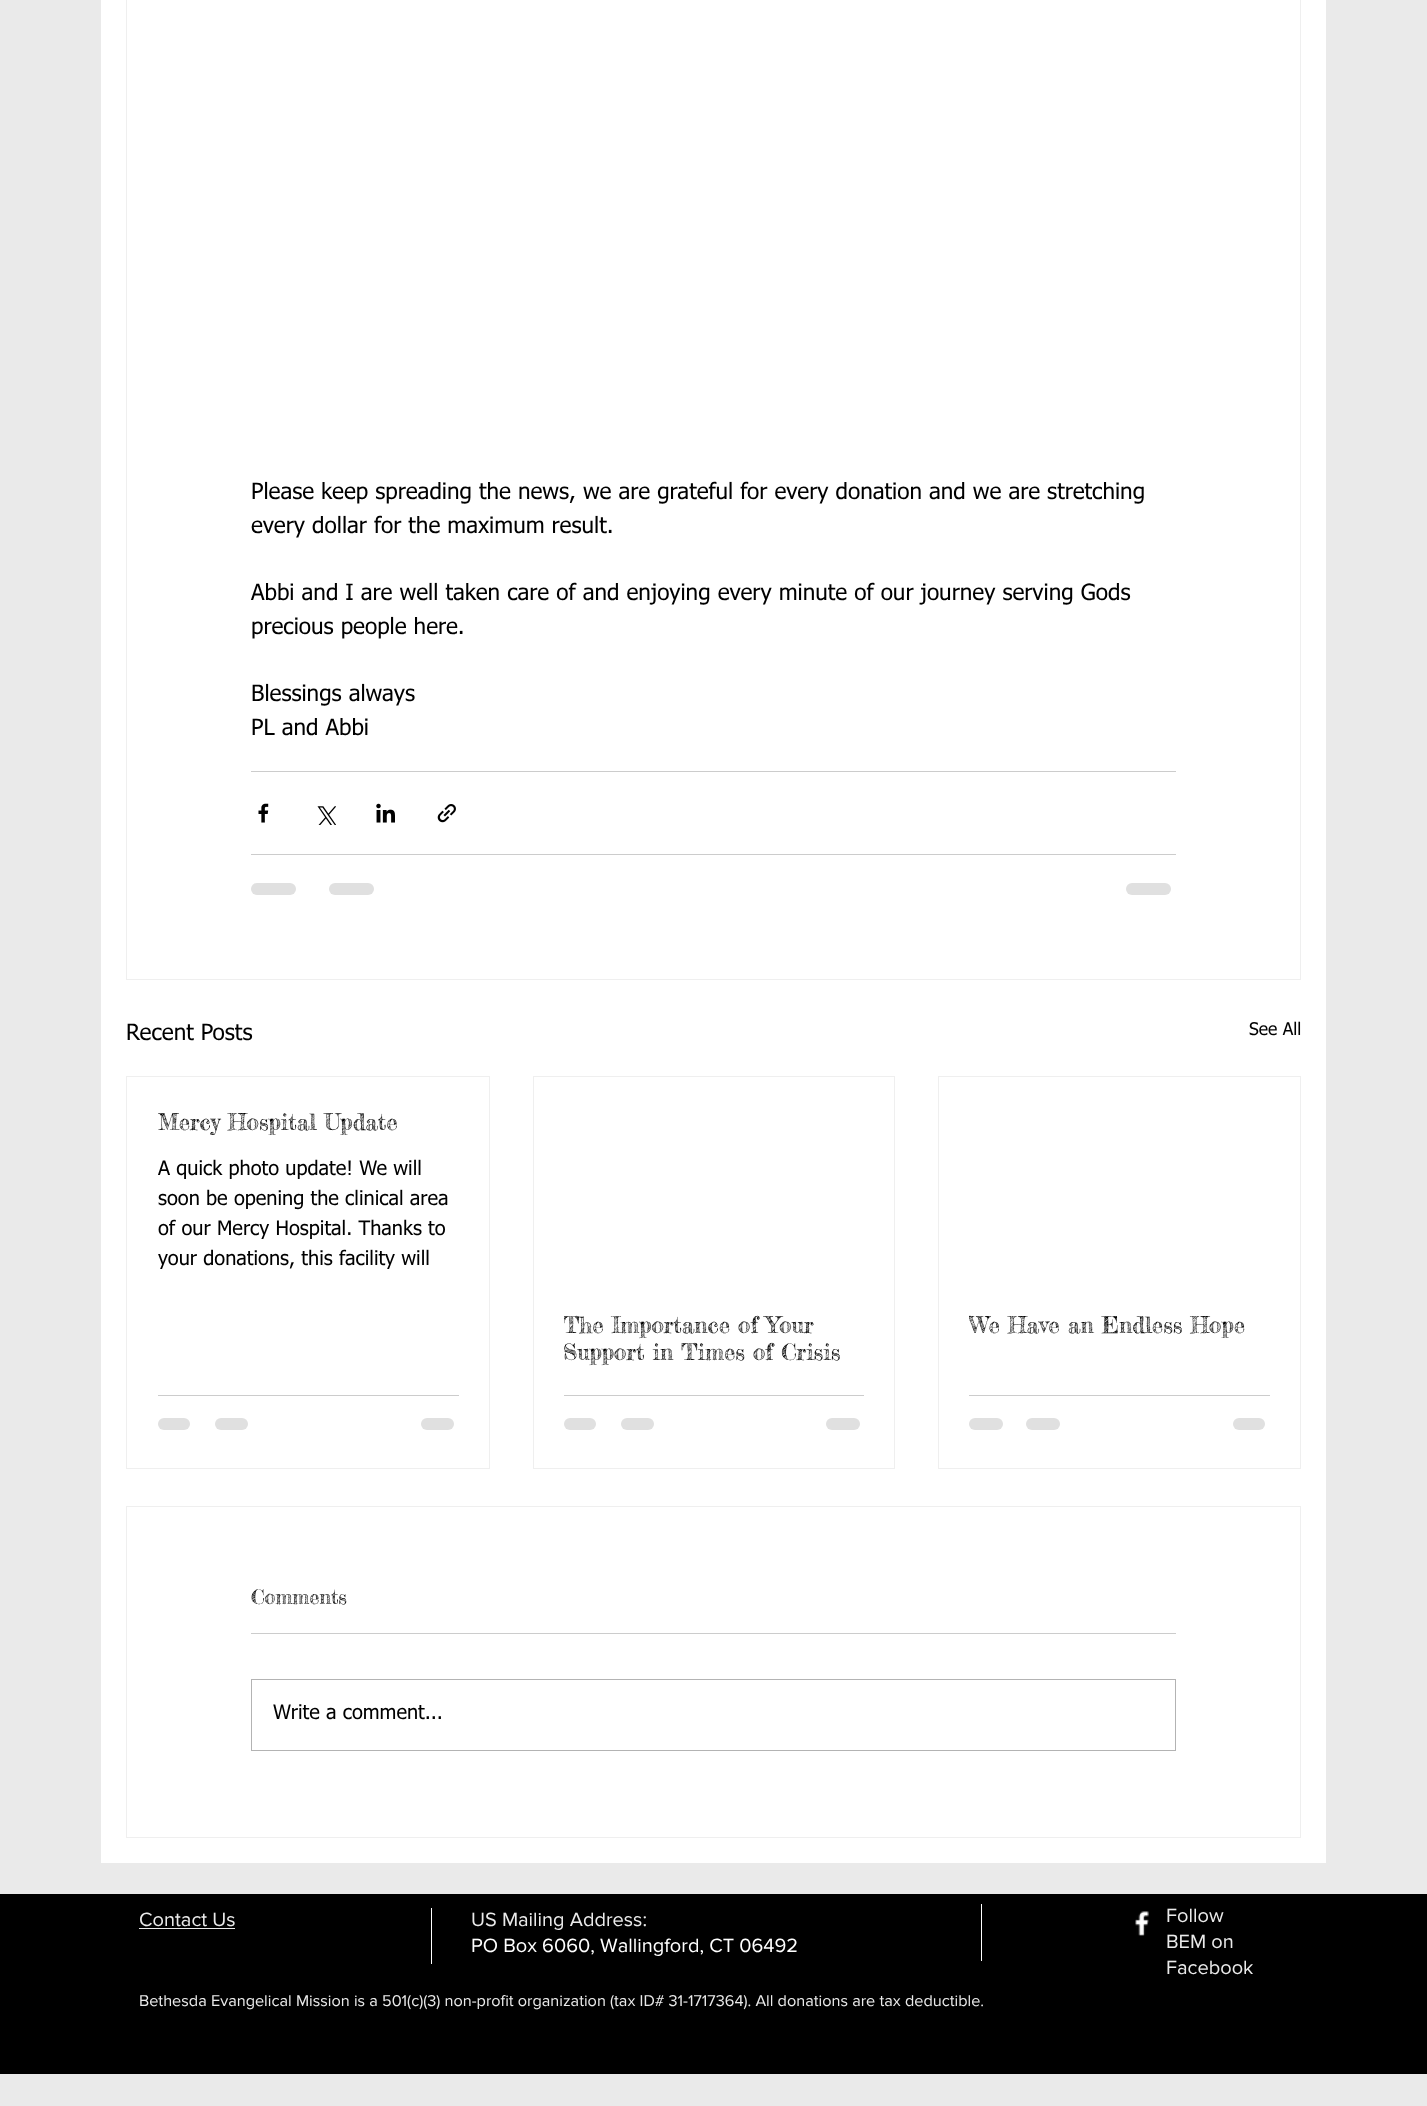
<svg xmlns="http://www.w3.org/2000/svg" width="1427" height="2106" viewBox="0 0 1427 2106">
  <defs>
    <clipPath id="clip1"><rect x="158" y="1108" width="301" height="27"/></clipPath>
    <clipPath id="clip2"><rect x="564" y="1310" width="300" height="55"/></clipPath>
    <clipPath id="clip3"><rect x="969" y="1310" width="301" height="28"/></clipPath>
  </defs>
  <rect width="100%" height="100%" fill="rgb(234,234,234)"/>
  <rect x="101" y="0" width="1225" height="1863" fill="rgb(255,255,255)"/>
  <rect x="126.5" y="-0.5" width="1174" height="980" fill="none" stroke="rgb(239,239,239)"/>
  <g font-family="tahoma" font-size="22.5" fill="rgb(0,0,0)">
    <text>
      <tspan x="251" y="499">Please keep spreading the news, we are grateful for every donation and we are stretching</tspan>
      <tspan x="251" y="533">every dollar for the maximum result.</tspan>
    </text>
    <text>
      <tspan x="251" y="600">Abbi and I are well taken care of and enjoying every minute of our journey serving Gods</tspan>
      <tspan x="251" y="634">precious people here.</tspan>
    </text>
    <text>
      <tspan x="251" y="701">Blessings always</tspan>
      <tspan x="251" y="735">PL and Abbi</tspan>
    </text>
  </g>
  <rect x="251" y="771" width="925" height="1" fill="rgb(204,204,204)"/>
  <image x="258" y="803" width="11" height="20" href="pic1.png"/>
  <image x="317" y="806" width="19" height="19" href="pic2.png"/>
  <image x="376" y="803" width="19" height="20" href="pic3.png"/>
  <image x="437" y="804" width="19" height="19" href="pic4.png"/>
  <rect x="251" y="854" width="925" height="1" fill="rgb(204,204,204)"/>
  <rect x="251" y="883" width="45" height="12" rx="6" fill="rgb(224,224,224)"/>
  <rect x="329" y="883" width="45" height="12" rx="6" fill="rgb(224,224,224)"/>
  <rect x="1126" y="883" width="45" height="12" rx="6" fill="rgb(224,224,224)"/>
  <text x="126" y="1040" font-family="tahoma" font-size="22.5" fill="rgb(0,0,0)">Recent Posts</text>
  <text x="1249" y="1035" font-family="tahoma" font-size="17.5" fill="rgb(0,0,0)">See All</text>
  <rect x="126.5" y="1076.5" width="363" height="392" fill="none" stroke="rgb(239,239,239)"/>
  <g clip-path="url(#clip1)">
    <text x="158" y="1130" font-family="Fredericka the Great" font-size="22.5" fill="rgb(0,0,0)">Mercy Hospital Update</text>
  </g>
  <g font-family="tahoma" font-size="20" fill="rgb(0,0,0)">
    <text>
      <tspan x="158" y="1175">A quick photo update! We will</tspan>
      <tspan x="158" y="1205">soon be opening the clinical area</tspan>
      <tspan x="158" y="1235">of our Mercy Hospital. Thanks to</tspan>
      <tspan x="158" y="1265">your donations, this facility will</tspan>
    </text>
  </g>
  <rect x="158" y="1395" width="301" height="1" fill="rgb(204,204,204)"/>
  <rect x="158" y="1418" width="32" height="12" rx="6" fill="rgb(224,224,224)"/>
  <rect x="215" y="1418" width="33" height="12" rx="6" fill="rgb(224,224,224)"/>
  <rect x="421" y="1418" width="33" height="12" rx="6" fill="rgb(224,224,224)"/>
  <rect x="533.5" y="1076.5" width="361" height="392" fill="none" stroke="rgb(239,239,239)"/>
  <g clip-path="url(#clip2)">
    <text x="563" y="1333" font-family="Fredericka the Great" font-size="22.5" fill="rgb(0,0,0)">The Importance of Your</text>
  </g>
  <text x="563" y="1360" font-family="Fredericka the Great" font-size="22.5" fill="rgb(0,0,0)">Support in Times of Crisis</text>
  <rect x="564" y="1395" width="300" height="1" fill="rgb(204,204,204)"/>
  <rect x="564" y="1418" width="32" height="12" rx="6" fill="rgb(224,224,224)"/>
  <rect x="621" y="1418" width="33" height="12" rx="6" fill="rgb(224,224,224)"/>
  <rect x="826" y="1418" width="34" height="12" rx="6" fill="rgb(224,224,224)"/>
  <rect x="938.5" y="1076.5" width="362" height="392" fill="none" stroke="rgb(239,239,239)"/>
  <g clip-path="url(#clip3)">
    <text x="969" y="1333" font-family="Fredericka the Great" font-size="22.5" fill="rgb(0,0,0)">We Have an Endless Hope</text>
  </g>
  <rect x="969" y="1395" width="301" height="1" fill="rgb(204,204,204)"/>
  <rect x="969" y="1418" width="34" height="12" rx="6" fill="rgb(224,224,224)"/>
  <rect x="1026" y="1418" width="34" height="12" rx="6" fill="rgb(224,224,224)"/>
  <rect x="1233" y="1418" width="32" height="12" rx="6" fill="rgb(224,224,224)"/>
  <rect x="126.5" y="1506.5" width="1174" height="331" fill="none" stroke="rgb(239,239,239)"/>
  <text x="251" y="1604" font-family="Fredericka the Great" font-size="20" fill="rgb(0,0,0)">Comments</text>
  <rect x="251" y="1633" width="925" height="1" fill="rgb(204,204,204)"/>
  <rect x="251.5" y="1679.5" width="924" height="71" fill="none" stroke="rgb(179,179,179)"/>
  <text x="273" y="1719" font-family="tahoma" font-size="20" fill="rgb(0,0,0)">Write a comment...</text>
  <rect x="0" y="1894" width="1427" height="180" fill="rgb(0,0,0)"/>
  <text x="139" y="1926" font-family="'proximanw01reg'" font-size="20" fill="rgb(234,234,234)">Contact Us</text>
  <rect x="139" y="1928" width="96" height="1" fill="rgb(234,234,234)"/>
  <rect x="431" y="1908" width="1" height="56" fill="rgb(255,255,255)"/>
  <text x="471" y="1926" font-family="'proximanw01reg'" font-size="20" fill="rgb(234,234,234)">US Mailing Address:</text>
  <text x="471" y="1952" font-family="'proximanw01reg'" font-size="20" fill="rgb(255,255,255)">PO Box 6060, Wallingford, CT 06492</text>
  <rect x="981" y="1904" width="1" height="57" fill="rgb(255,255,255)"/>
  <image x="1135" y="1911" width="14" height="25" href="pic5.png"/>
  <g font-family="'proximanw01reg'" font-size="20" fill="rgb(234,234,234)">
    <text>
      <tspan x="1166" y="1922">Follow</tspan>
      <tspan x="1166" y="1948">BEM on</tspan>
      <tspan x="1166" y="1974">Facebook</tspan>
    </text>
  </g>
  <text x="139" y="2006" font-family="'proximanw01reg'" font-size="16.25" fill="rgb(234,234,234)">Bethesda Evangelical Mission is a 501(c)(3) non-profit organization (tax ID# 31-1717364). All donations are tax deductible.</text>
</svg>
